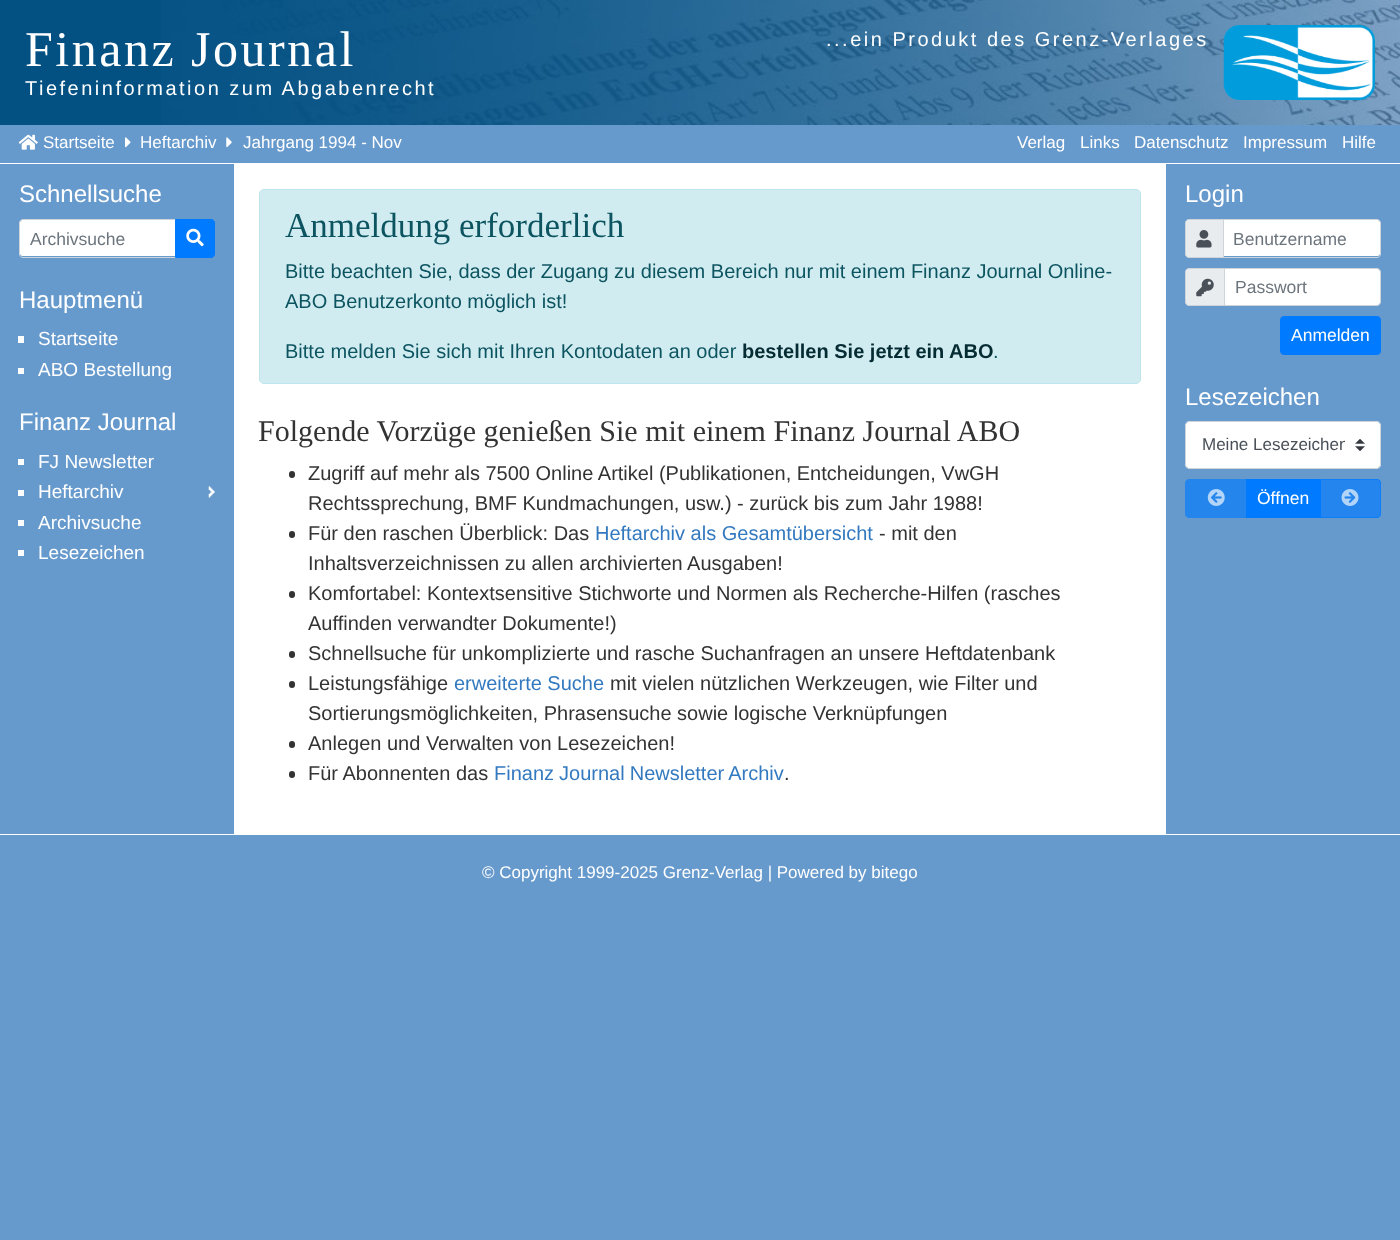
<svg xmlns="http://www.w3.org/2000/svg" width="1400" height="1240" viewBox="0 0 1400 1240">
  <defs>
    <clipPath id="clip1"><rect x="1201" y="433" width="144" height="26"/></clipPath>
  </defs>
  <rect width="100%" height="100%" fill="rgb(102,153,204)"/>
  <rect x="0" y="0" width="161" height="125" fill="rgb(3,81,131)"/>
  <image x="161" y="0" width="1239" height="125" href="pic1.png"/>
  <text x="25" y="66" font-family="Liberation Serif" font-size="50" letter-spacing="2.5" fill="rgb(255,255,255)">Finanz Journal</text>
  <g font-family="Liberation Sans" font-size="20" letter-spacing="2.5" fill="rgb(255,255,255)">
    <text x="25" y="95">Tiefeninformation zum Abgabenrecht</text>
    <text x="826" y="46">...ein Produkt des Grenz-Verlages</text>
  </g>
  <image x="1223" y="25" width="152" height="75" href="pic2.png"/>
  <rect x="0" y="163" width="1400" height="1" fill="rgb(255,255,255)"/>
  <image x="18" y="134" width="20" height="16" href="pic3.png"/>
  <text x="43" y="148" font-family="Liberation Sans" font-size="17" fill="rgb(255,255,255)">Startseite</text>
  <image x="125" y="137" width="6" height="11" href="pic4.png"/>
  <text x="140" y="148" font-family="Liberation Sans" font-size="17" fill="rgb(255,255,255)">Heftarchiv</text>
  <image x="226" y="137" width="6" height="11" href="pic5.png"/>
  <g font-family="Liberation Sans" font-size="17" fill="rgb(255,255,255)">
    <text x="243" y="148">Jahrgang 1994 - Nov</text>
    <text x="1017" y="148">Verlag</text>
    <text x="1080" y="148">Links</text>
    <text x="1134" y="148">Datenschutz</text>
    <text x="1243" y="148">Impressum</text>
    <text x="1342" y="148">Hilfe</text>
  </g>
  <text x="19" y="202" font-family="Liberation Sans" font-size="24" fill="rgb(255,255,255)">Schnellsuche</text>
  <path d="M22.5 220H175V256H22.5C21 256 20 255 20 253.5V222.5C20 221 21 220 22.5 220Z" fill="rgb(255,255,255)"/>
  <path d="M23 219.5H175.5V257.5H23C21 257.5 19.5 256 19.5 254V223C19.5 221 21 219.5 23 219.5Z" fill="none" stroke="rgb(206,212,218)"/>
  <text x="30" y="245" font-family="Liberation Sans" font-size="17.5" fill="rgb(108,117,125)">Archivsuche</text>
  <path d="M175.5 219.5H211C213 219.5 214.5 221 214.5 223V254C214.5 256 213 257.5 211 257.5H175.5Z" fill="rgb(0,123,255)" stroke="rgb(0,123,255)"/>
  <image x="186" y="228" width="18" height="19" href="pic6.png"/>
  <text x="19" y="308" font-family="Liberation Sans" font-size="24" fill="rgb(255,255,255)">Hauptmenü</text>
  <rect x="18" y="336" width="6" height="7" fill="rgb(255,255,255)"/>
  <text x="38" y="345" font-family="Liberation Sans" font-size="19" fill="rgb(255,255,255)">Startseite</text>
  <rect x="18" y="368" width="6" height="6" fill="rgb(255,255,255)"/>
  <text x="38" y="376" font-family="Liberation Sans" font-size="19" fill="rgb(255,255,255)">ABO Bestellung</text>
  <text x="19" y="430" font-family="Liberation Sans" font-size="24" fill="rgb(255,255,255)">Finanz Journal</text>
  <rect x="18" y="459" width="6" height="6" fill="rgb(255,255,255)"/>
  <text x="38" y="468" font-family="Liberation Sans" font-size="19" fill="rgb(255,255,255)">FJ Newsletter</text>
  <rect x="18" y="490" width="6" height="6" fill="rgb(255,255,255)"/>
  <image x="208" y="486" width="7" height="12" href="pic7.png"/>
  <text x="38" y="498" font-family="Liberation Sans" font-size="19" fill="rgb(255,255,255)">Heftarchiv</text>
  <rect x="18" y="520" width="6" height="6" fill="rgb(255,255,255)"/>
  <text x="38" y="529" font-family="Liberation Sans" font-size="19" fill="rgb(255,255,255)">Archivsuche</text>
  <rect x="18" y="550" width="6" height="6" fill="rgb(255,255,255)"/>
  <text x="38" y="559" font-family="Liberation Sans" font-size="19" fill="rgb(255,255,255)">Lesezeichen</text>
  <rect x="234" y="164" width="932" height="670" fill="rgb(255,255,255)"/>
  <rect x="259.5" y="189.5" width="881" height="194" rx="4.5" fill="rgb(209,236,241)" stroke="rgb(190,229,235)"/>
  <text x="285" y="237" font-family="Liberation Serif" font-size="35" fill="rgb(12,84,96)">Anmeldung erforderlich</text>
  <g font-family="Liberation Sans" font-size="20" fill="rgb(12,84,96)">
    <text>
      <tspan x="285" y="278">Bitte beachten Sie, dass der Zugang zu diesem Bereich nur mit einem Finanz Journal Online-</tspan>
      <tspan x="285" y="308">ABO Benutzerkonto möglich ist!</tspan>
    </text>
    <text x="285" y="358">Bitte melden Sie sich mit Ihren Kontodaten an oder</text>
  </g>
  <text x="742" y="358" font-family="Liberation Sans" font-size="20" font-weight="bold" fill="rgb(6,44,51)">bestellen Sie jetzt ein ABO</text>
  <text x="993" y="358" font-family="Liberation Sans" font-size="20" fill="rgb(12,84,96)">.</text>
  <text x="258" y="441" font-family="Liberation Serif" font-size="30" fill="rgb(51,51,51)">Folgende Vorzüge genießen Sie mit einem Finanz Journal ABO</text>
  <rect x="289" y="471" width="6" height="7" rx="3" fill="rgb(51,51,51)"/>
  <g font-family="Liberation Sans" font-size="20" fill="rgb(51,51,51)">
    <text>
      <tspan x="308" y="480">Zugriff auf mehr als 7500 Online Artikel (Publikationen, Entcheidungen, VwGH</tspan>
      <tspan x="308" y="510">Rechtssprechung, BMF Kundmachungen, usw.) - zurück bis zum Jahr 1988!</tspan>
    </text>
  </g>
  <rect x="289" y="531" width="6" height="7" rx="3" fill="rgb(51,51,51)"/>
  <text x="308" y="540" font-family="Liberation Sans" font-size="20" fill="rgb(51,51,51)">Für den raschen Überblick: Das</text>
  <text x="595" y="540" font-family="Liberation Sans" font-size="20" fill="rgb(51,121,191)">Heftarchiv als Gesamtübersicht</text>
  <g font-family="Liberation Sans" font-size="20" fill="rgb(51,51,51)">
    <text x="879" y="540">- mit den</text>
    <text x="308" y="570">Inhaltsverzeichnissen zu allen archivierten Ausgaben!</text>
  </g>
  <rect x="289" y="591" width="6" height="7" rx="3" fill="rgb(51,51,51)"/>
  <g font-family="Liberation Sans" font-size="20" fill="rgb(51,51,51)">
    <text>
      <tspan x="308" y="600">Komfortabel: Kontextsensitive Stichworte und Normen als Recherche-Hilfen (rasches</tspan>
      <tspan x="308" y="630">Auffinden verwandter Dokumente!)</tspan>
    </text>
  </g>
  <rect x="289" y="651" width="6" height="7" rx="3" fill="rgb(51,51,51)"/>
  <text x="308" y="660" font-family="Liberation Sans" font-size="20" fill="rgb(51,51,51)">Schnellsuche für unkomplizierte und rasche Suchanfragen an unsere Heftdatenbank</text>
  <rect x="289" y="681" width="6" height="7" rx="3" fill="rgb(51,51,51)"/>
  <text x="308" y="690" font-family="Liberation Sans" font-size="20" fill="rgb(51,51,51)">Leistungsfähige</text>
  <text x="454" y="690" font-family="Liberation Sans" font-size="20" fill="rgb(51,121,191)">erweiterte Suche</text>
  <g font-family="Liberation Sans" font-size="20" fill="rgb(51,51,51)">
    <text x="610" y="690">mit vielen nützlichen Werkzeugen, wie Filter und</text>
    <text x="308" y="720">Sortierungsmöglichkeiten, Phrasensuche sowie logische Verknüpfungen</text>
  </g>
  <rect x="289" y="741" width="6" height="7" rx="3" fill="rgb(51,51,51)"/>
  <text x="308" y="750" font-family="Liberation Sans" font-size="20" fill="rgb(51,51,51)">Anlegen und Verwalten von Lesezeichen!</text>
  <rect x="289" y="771" width="6" height="7" rx="3" fill="rgb(51,51,51)"/>
  <text x="308" y="780" font-family="Liberation Sans" font-size="20" fill="rgb(51,51,51)">Für Abonnenten das</text>
  <text x="494" y="780" word-spacing="-0.5" font-family="Liberation Sans" font-size="20" fill="rgb(51,121,191)">Finanz Journal Newsletter Archiv</text>
  <text x="784" y="780" font-family="Liberation Sans" font-size="20" fill="rgb(51,51,51)">.</text>
  <text x="1185" y="202" font-family="Liberation Sans" font-size="24" fill="rgb(255,255,255)">Login</text>
  <path d="M1189 219.5H1223.5V257.5H1189C1187 257.5 1185.5 256 1185.5 254V223C1185.5 221 1187 219.5 1189 219.5Z" fill="rgb(233,236,239)" stroke="rgb(206,212,218)"/>
  <image x="1196" y="230" width="16" height="18" href="pic8.png"/>
  <path d="M1224 220H1377.5C1379 220 1380 221 1380 222.5V253.5C1380 255 1379 256 1377.5 256H1224Z" fill="rgb(255,255,255)"/>
  <path d="M1223.5 219.5H1377C1379 219.5 1380.5 221 1380.5 223V254C1380.5 256 1379 257.5 1377 257.5H1223.5Z" fill="none" stroke="rgb(206,212,218)"/>
  <text x="1233" y="245" font-family="Liberation Sans" font-size="17.5" fill="rgb(108,117,125)">Benutzername</text>
  <path d="M1189 268.5H1224.5V305.5H1189C1187 305.5 1185.5 304 1185.5 302V272C1185.5 270 1187 268.5 1189 268.5Z" fill="rgb(233,236,239)" stroke="rgb(206,212,218)"/>
  <image x="1196" y="278" width="18" height="19" href="pic9.png"/>
  <path d="M1225 269H1377.5C1379 269 1380 270 1380 271.5V302.5C1380 304 1379 305 1377.5 305H1225Z" fill="rgb(255,255,255)"/>
  <path d="M1224.5 268.5H1377C1379 268.5 1380.5 270 1380.5 272V302C1380.5 304 1379 305.5 1377 305.5H1224.5Z" fill="none" stroke="rgb(206,212,218)"/>
  <text x="1235" y="293" font-family="Liberation Sans" font-size="17.5" fill="rgb(108,117,125)">Passwort</text>
  <rect x="1280.5" y="316.5" width="100" height="38" rx="3.5" fill="rgb(0,123,255)" stroke="rgb(0,123,255)"/>
  <text x="1291" y="341" font-family="Liberation Sans" font-size="17.5" fill="rgb(255,255,255)">Anmelden</text>
  <text x="1185" y="405" font-family="Liberation Sans" font-size="24" fill="rgb(255,255,255)">Lesezeichen</text>
  <rect x="1185" y="421" width="196" height="48" rx="5" fill="rgb(255,255,255)"/>
  <image x="1355" y="439" width="10" height="12" href="pic10.png"/>
  <rect x="1185.5" y="421.5" width="195" height="47" rx="4.5" fill="none" stroke="rgb(206,212,218)"/>
  <g clip-path="url(#clip1)">
    <text x="1202" y="450" font-family="Liberation Sans" font-size="17" fill="rgb(73,80,87)">Meine Lesezeichen</text>
  </g>
  <path d="M1189 479.5H1247.5V517.5H1189C1187 517.5 1185.5 516 1185.5 514V483C1185.5 481 1187 479.5 1189 479.5Z" fill="rgb(36,134,237)" stroke="rgb(36,134,237)"/>
  <image x="1207" y="489" width="18" height="17" href="pic11.png"/>
  <rect x="1246" y="479" width="75" height="39" fill="rgb(0,123,255)"/>
  <text x="1257" y="504" font-family="Liberation Sans" font-size="17.5" fill="rgb(255,255,255)">Öffnen</text>
  <path d="M1320 479H1377C1379 479 1381 481 1381 483V514C1381 516 1379 518 1377 518H1320Z" fill="rgba(0,123,255,0.65)"/>
  <path d="M1320.5 479.5H1377C1379 479.5 1380.5 481 1380.5 483V514C1380.5 516 1379 517.5 1377 517.5H1320.5Z" fill="none" stroke="rgba(0,123,255,0.65)"/>
  <image x="1341" y="489" width="18" height="17" href="pic12.png"/>
  <rect x="0" y="834" width="1400" height="1" fill="rgb(255,255,255)"/>
  <text x="482" y="878" font-family="Liberation Sans" font-size="17" fill="rgb(255,255,255)">© Copyright 1999-2025 Grenz-Verlag | Powered by bitego</text>
</svg>
